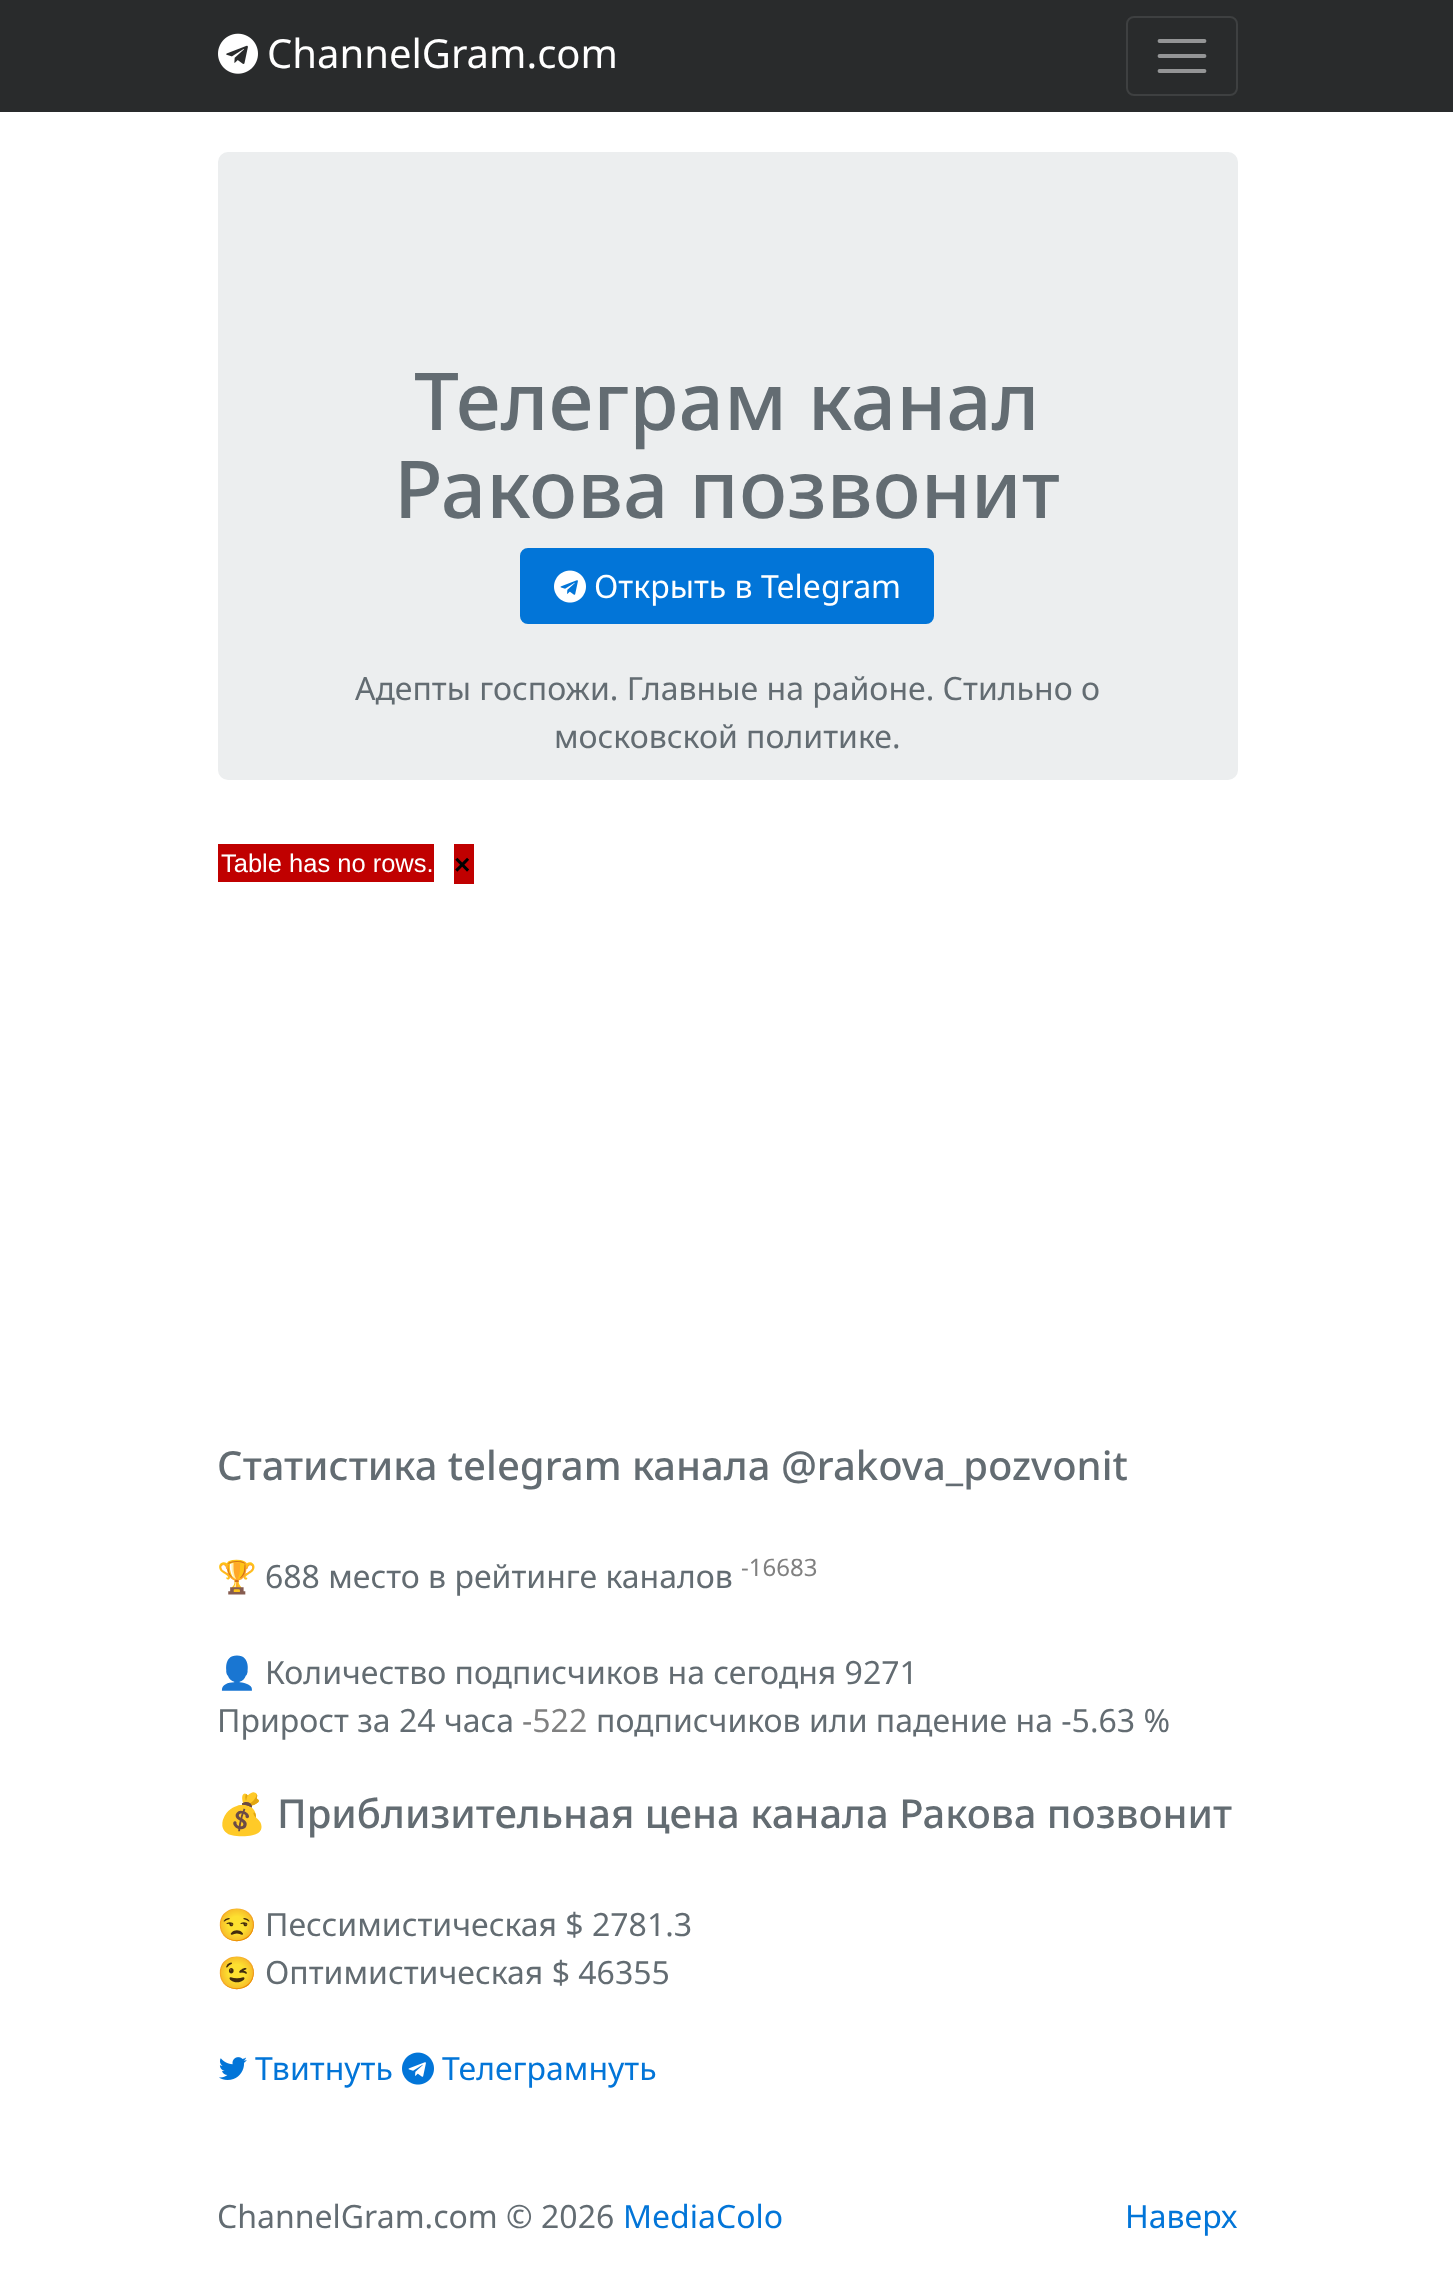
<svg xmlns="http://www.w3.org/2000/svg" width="1453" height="2289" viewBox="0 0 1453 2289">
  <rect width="100%" height="100%" fill="rgb(255,255,255)"/>
  <rect x="0" y="0" width="1453" height="112" fill="rgb(41,43,44)"/>
  <image x="218" y="33" width="40" height="41" href="pic1.png"/>
  <text x="267" y="68" font-family="Noto Sans" font-size="40" fill="rgb(255,255,255)">ChannelGram.com</text>
  <rect x="1127" y="17" width="110" height="78" rx="7" fill="none" stroke="rgb(62,64,65)" stroke-width="2"/>
  <path d="M1159.5 41H1204.5M1159.5 56H1204.5M1159.5 71H1204.5" fill="none" stroke="rgb(148,149,150)" stroke-width="3.8" stroke-linecap="round"/>
  <rect x="218" y="152" width="1020" height="628" rx="10" fill="rgb(236,238,239)"/>
  <g font-family="Noto Sans" font-size="80" font-weight="500" fill="rgb(99,108,114)">
    <text x="414" y="430">Телеграм канал</text>
    <text x="394" y="518">Ракова позвонит</text>
  </g>
  <rect x="521" y="549" width="412" height="74" rx="7" fill="rgb(2,117,216)" stroke="rgb(2,117,216)" stroke-width="2"/>
  <image x="554" y="570" width="32" height="33" href="pic2.png"/>
  <text x="594" y="598" font-family="Noto Sans" font-size="32" fill="rgb(255,255,255)">Открыть в Telegram</text>
  <g font-family="Noto Sans" font-size="32" fill="rgb(99,108,114)">
    <text x="355" y="700">Адепты госпожи. Главные на районе. Стильно о</text>
    <text x="554" y="748">московской политике.</text>
  </g>
  <rect x="218" y="844" width="216" height="38" fill="rgb(192,0,0)"/>
  <text x="221" y="872" font-family="Liberation Sans" font-size="25.5" fill="rgb(255,255,255)">Table has no rows.</text>
  <rect x="454" y="844" width="20" height="40" fill="rgb(192,0,0)"/>
  <text x="454" y="874" font-family="Liberation Sans" font-size="28" font-weight="bold" fill="rgb(0,0,0)">×</text>
  <text x="217" y="1480" font-family="Noto Sans" font-size="40" font-weight="500" fill="rgb(99,108,114)">Статистика telegram канала @rakova_pozvonit</text>
  <text x="217" y="1588" font-family="Noto Color Emoji" font-size="32" fill="rgb(99,108,114)">🏆</text>
  <text x="265" y="1588" font-family="Noto Sans" font-size="32" fill="rgb(99,108,114)">688 место в рейтинге каналов</text>
  <text x="741" y="1576" font-family="Noto Sans" font-size="24" fill="rgb(128,128,128)">-16683</text>
  <text x="217" y="1684" font-family="Noto Color Emoji" font-size="32" fill="rgb(99,108,114)">👤</text>
  <g font-family="Noto Sans" font-size="32" fill="rgb(99,108,114)">
    <text x="265" y="1684">Количество подписчиков на сегодня 9271</text>
    <text x="217" y="1732">Прирост за 24 часа</text>
  </g>
  <text x="522" y="1732" font-family="Noto Sans" font-size="32" fill="rgb(128,128,128)">-522</text>
  <text x="596" y="1732" font-family="Noto Sans" font-size="32" fill="rgb(99,108,114)">подписчиков или падение на -5.63 %</text>
  <text x="217" y="1828" font-family="Noto Color Emoji" font-size="40" fill="rgb(99,108,114)">💰</text>
  <text x="277" y="1828" font-family="Noto Sans" font-size="40" font-weight="500" fill="rgb(99,108,114)">Приблизительная цена канала Ракова позвонит</text>
  <text x="217" y="1936" font-family="Noto Color Emoji" font-size="32" fill="rgb(99,108,114)">😒</text>
  <text x="265" y="1936" font-family="Noto Sans" font-size="32" fill="rgb(99,108,114)">Пессимистическая $ 2781.3</text>
  <text x="217" y="1984" font-family="Noto Color Emoji" font-size="32" fill="rgb(99,108,114)">😉</text>
  <text x="265" y="1984" font-family="Noto Sans" font-size="32" fill="rgb(99,108,114)">Оптимистическая $ 46355</text>
  <image x="219" y="2057" width="28" height="23" href="pic3.png"/>
  <text x="255" y="2080" font-family="Noto Sans" font-size="32" fill="rgb(2,117,216)">Твитнуть</text>
  <image x="402" y="2052" width="32" height="33" href="pic4.png"/>
  <text x="442" y="2080" font-family="Noto Sans" font-size="32" fill="rgb(2,117,216)">Телеграмнуть</text>
  <text x="217" y="2228" font-family="Noto Sans" font-size="32" fill="rgb(99,108,114)">ChannelGram.com © 2026</text>
  <g font-family="Noto Sans" font-size="32" fill="rgb(2,117,216)">
    <text x="623" y="2228">MediaColo</text>
    <text x="1125" y="2228">Наверх</text>
  </g>
</svg>
